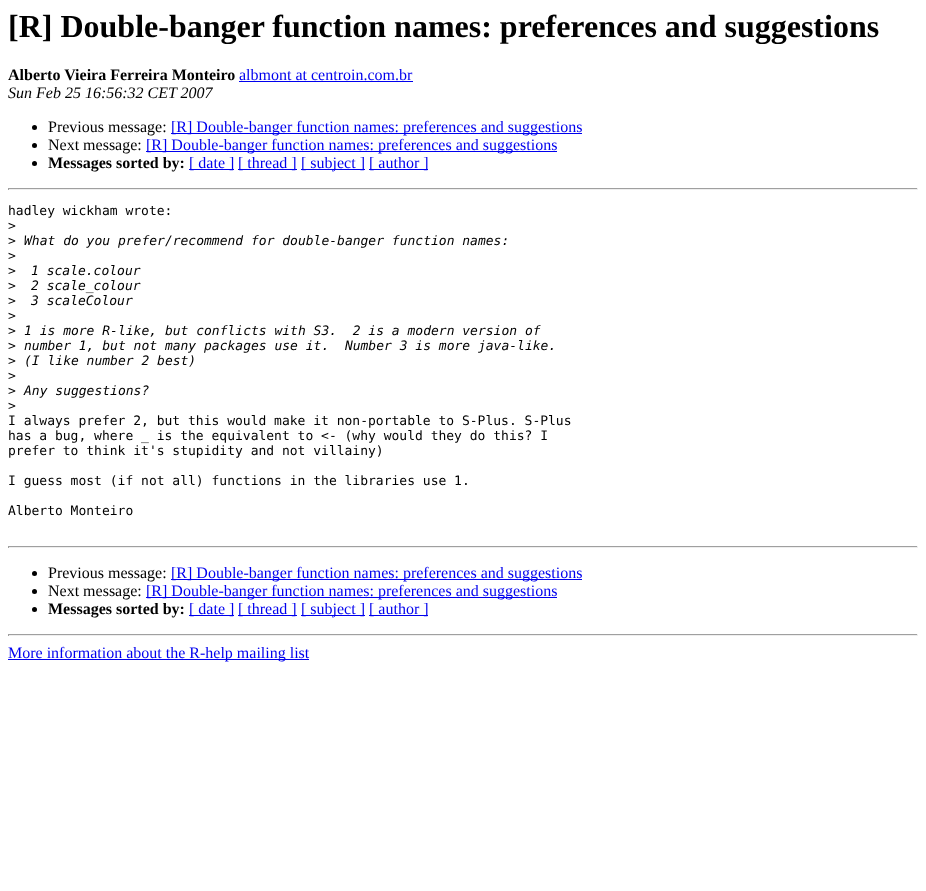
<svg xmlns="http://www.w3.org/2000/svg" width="926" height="891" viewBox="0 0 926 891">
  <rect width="100%" height="100%" fill="rgb(255,255,255)"/>
  <text x="8" y="37" font-family="Liberation Serif" font-size="32" font-weight="bold" fill="rgb(0,0,0)">[R] Double-banger function names: preferences and suggestions</text>
  <text x="8" y="80" font-family="Liberation Serif" font-size="16" font-weight="bold" fill="rgb(0,0,0)">Alberto Vieira Ferreira Monteiro</text>
  <text x="239" y="80" font-family="Liberation Serif" font-size="16" fill="rgb(0,0,238)">albmont at centroin.com.br</text>
  <rect x="239" y="81" width="174" height="1" fill="rgb(0,0,238)"/>
  <text x="8" y="98" font-family="Liberation Serif" font-size="16" font-style="italic" fill="rgb(0,0,0)">Sun Feb 25 16:56:32 CET 2007</text>
  <circle cx="34.5" cy="127.5" r="2.5" fill="rgb(0,0,0)"/>
  <text x="48" y="132" font-family="Liberation Serif" font-size="16" fill="rgb(0,0,0)">Previous message:</text>
  <rect x="171" y="133" width="411" height="1" fill="rgb(0,0,238)"/>
  <text x="171" y="132" font-family="Liberation Serif" font-size="16" fill="rgb(0,0,238)">[R] Double-banger function names: preferences and suggestions</text>
  <circle cx="34.5" cy="145.5" r="2.5" fill="rgb(0,0,0)"/>
  <text x="48" y="150" font-family="Liberation Serif" font-size="16" fill="rgb(0,0,0)">Next message:</text>
  <rect x="146" y="151" width="411" height="1" fill="rgb(0,0,238)"/>
  <text x="146" y="150" font-family="Liberation Serif" font-size="16" fill="rgb(0,0,238)">[R] Double-banger function names: preferences and suggestions</text>
  <circle cx="34.5" cy="163.5" r="2.5" fill="rgb(0,0,0)"/>
  <text x="48" y="168" font-family="Liberation Serif" font-size="16" font-weight="bold" fill="rgb(0,0,0)">Messages sorted by:</text>
  <rect x="189" y="169" width="45" height="1" fill="rgb(0,0,238)"/>
  <text x="189" y="168" font-family="Liberation Serif" font-size="16" fill="rgb(0,0,238)">[ date ]</text>
  <rect x="238" y="169" width="59" height="1" fill="rgb(0,0,238)"/>
  <text x="238" y="168" font-family="Liberation Serif" font-size="16" fill="rgb(0,0,238)">[ thread ]</text>
  <rect x="301" y="169" width="64" height="1" fill="rgb(0,0,238)"/>
  <text x="301" y="168" font-family="Liberation Serif" font-size="16" fill="rgb(0,0,238)">[ subject ]</text>
  <rect x="369" y="169" width="59" height="1" fill="rgb(0,0,238)"/>
  <text x="369" y="168" font-family="Liberation Serif" font-size="16" fill="rgb(0,0,238)">[ author ]</text>
  <rect x="8" y="188" width="910" height="1" fill="rgb(159,159,159)"/>
  <rect x="917" y="188" width="1" height="2" fill="rgb(238,238,238)"/>
  <rect x="8" y="189" width="910" height="1" fill="rgb(238,238,238)"/>
  <rect x="8" y="188" width="1" height="2" fill="rgb(159,159,159)"/>
  <g font-family="DejaVu Sans Mono" font-size="13" fill="rgb(0,0,0)">
    <text>
      <tspan x="8" y="215">hadley wickham wrote:</tspan>
      <tspan x="8" y="230">&gt;</tspan>
      <tspan x="8" y="245">&gt;</tspan>
    </text>
  </g>
  <text x="24" y="245" font-family="DejaVu Sans Mono" font-size="13" font-style="italic" fill="rgb(0,0,0)">What do you prefer/recommend for double-banger function names:</text>
  <g font-family="DejaVu Sans Mono" font-size="13" fill="rgb(0,0,0)">
    <text>
      <tspan x="8" y="260">&gt;</tspan>
      <tspan x="8" y="275">&gt;</tspan>
    </text>
  </g>
  <text x="31" y="275" font-family="DejaVu Sans Mono" font-size="13" font-style="italic" fill="rgb(0,0,0)">1 scale.colour</text>
  <text x="8" y="290" font-family="DejaVu Sans Mono" font-size="13" fill="rgb(0,0,0)">&gt;</text>
  <text x="31" y="290" font-family="DejaVu Sans Mono" font-size="13" font-style="italic" fill="rgb(0,0,0)">2 scale_colour</text>
  <text x="8" y="305" font-family="DejaVu Sans Mono" font-size="13" fill="rgb(0,0,0)">&gt;</text>
  <text x="31" y="305" font-family="DejaVu Sans Mono" font-size="13" font-style="italic" fill="rgb(0,0,0)">3 scaleColour</text>
  <g font-family="DejaVu Sans Mono" font-size="13" fill="rgb(0,0,0)">
    <text>
      <tspan x="8" y="320">&gt;</tspan>
      <tspan x="8" y="335">&gt;</tspan>
    </text>
  </g>
  <text x="24" y="335" font-family="DejaVu Sans Mono" font-size="13" font-style="italic" fill="rgb(0,0,0)" xml:space="preserve">1 is more R-like, but conflicts with S3.  2 is a modern version of</text>
  <text x="8" y="350" font-family="DejaVu Sans Mono" font-size="13" fill="rgb(0,0,0)">&gt;</text>
  <text x="24" y="350" font-family="DejaVu Sans Mono" font-size="13" font-style="italic" fill="rgb(0,0,0)" xml:space="preserve">number 1, but not many packages use it.  Number 3 is more java-like.</text>
  <text x="8" y="365" font-family="DejaVu Sans Mono" font-size="13" fill="rgb(0,0,0)">&gt;</text>
  <text x="24" y="365" font-family="DejaVu Sans Mono" font-size="13" font-style="italic" fill="rgb(0,0,0)">(I like number 2 best)</text>
  <g font-family="DejaVu Sans Mono" font-size="13" fill="rgb(0,0,0)">
    <text>
      <tspan x="8" y="380">&gt;</tspan>
      <tspan x="8" y="395">&gt;</tspan>
    </text>
  </g>
  <text x="24" y="395" font-family="DejaVu Sans Mono" font-size="13" font-style="italic" fill="rgb(0,0,0)">Any suggestions?</text>
  <g font-family="DejaVu Sans Mono" font-size="13" fill="rgb(0,0,0)">
    <text>
      <tspan x="8" y="410">&gt;</tspan>
      <tspan x="8" y="425">I always prefer 2, but this would make it non-portable to S-Plus. S-Plus</tspan>
      <tspan x="8" y="440">has a bug, where _ is the equivalent to &lt;- (why would they do this? I</tspan>
      <tspan x="8" y="455">prefer to think it's stupidity and not villainy)</tspan>
    </text>
    <text x="8" y="485">I guess most (if not all) functions in the libraries use 1.</text>
    <text x="8" y="515">Alberto Monteiro</text>
  </g>
  <rect x="8" y="546" width="910" height="1" fill="rgb(159,159,159)"/>
  <rect x="917" y="546" width="1" height="2" fill="rgb(238,238,238)"/>
  <rect x="8" y="547" width="910" height="1" fill="rgb(238,238,238)"/>
  <rect x="8" y="546" width="1" height="2" fill="rgb(159,159,159)"/>
  <circle cx="34.5" cy="573.5" r="2.5" fill="rgb(0,0,0)"/>
  <text x="48" y="578" font-family="Liberation Serif" font-size="16" fill="rgb(0,0,0)">Previous message:</text>
  <rect x="171" y="579" width="411" height="1" fill="rgb(0,0,238)"/>
  <text x="171" y="578" font-family="Liberation Serif" font-size="16" fill="rgb(0,0,238)">[R] Double-banger function names: preferences and suggestions</text>
  <circle cx="34.5" cy="591.5" r="2.5" fill="rgb(0,0,0)"/>
  <text x="48" y="596" font-family="Liberation Serif" font-size="16" fill="rgb(0,0,0)">Next message:</text>
  <rect x="146" y="597" width="411" height="1" fill="rgb(0,0,238)"/>
  <text x="146" y="596" font-family="Liberation Serif" font-size="16" fill="rgb(0,0,238)">[R] Double-banger function names: preferences and suggestions</text>
  <circle cx="34.5" cy="609.5" r="2.5" fill="rgb(0,0,0)"/>
  <text x="48" y="614" font-family="Liberation Serif" font-size="16" font-weight="bold" fill="rgb(0,0,0)">Messages sorted by:</text>
  <rect x="189" y="615" width="45" height="1" fill="rgb(0,0,238)"/>
  <text x="189" y="614" font-family="Liberation Serif" font-size="16" fill="rgb(0,0,238)">[ date ]</text>
  <rect x="238" y="615" width="59" height="1" fill="rgb(0,0,238)"/>
  <text x="238" y="614" font-family="Liberation Serif" font-size="16" fill="rgb(0,0,238)">[ thread ]</text>
  <rect x="301" y="615" width="64" height="1" fill="rgb(0,0,238)"/>
  <text x="301" y="614" font-family="Liberation Serif" font-size="16" fill="rgb(0,0,238)">[ subject ]</text>
  <rect x="369" y="615" width="59" height="1" fill="rgb(0,0,238)"/>
  <text x="369" y="614" font-family="Liberation Serif" font-size="16" fill="rgb(0,0,238)">[ author ]</text>
  <rect x="8" y="634" width="910" height="1" fill="rgb(159,159,159)"/>
  <rect x="917" y="634" width="1" height="2" fill="rgb(238,238,238)"/>
  <rect x="8" y="635" width="910" height="1" fill="rgb(238,238,238)"/>
  <rect x="8" y="634" width="1" height="2" fill="rgb(159,159,159)"/>
  <rect x="8" y="659" width="301" height="1" fill="rgb(0,0,238)"/>
  <text x="8" y="658" font-family="Liberation Serif" font-size="16" fill="rgb(0,0,238)">More information about the R-help mailing list</text>
</svg>
